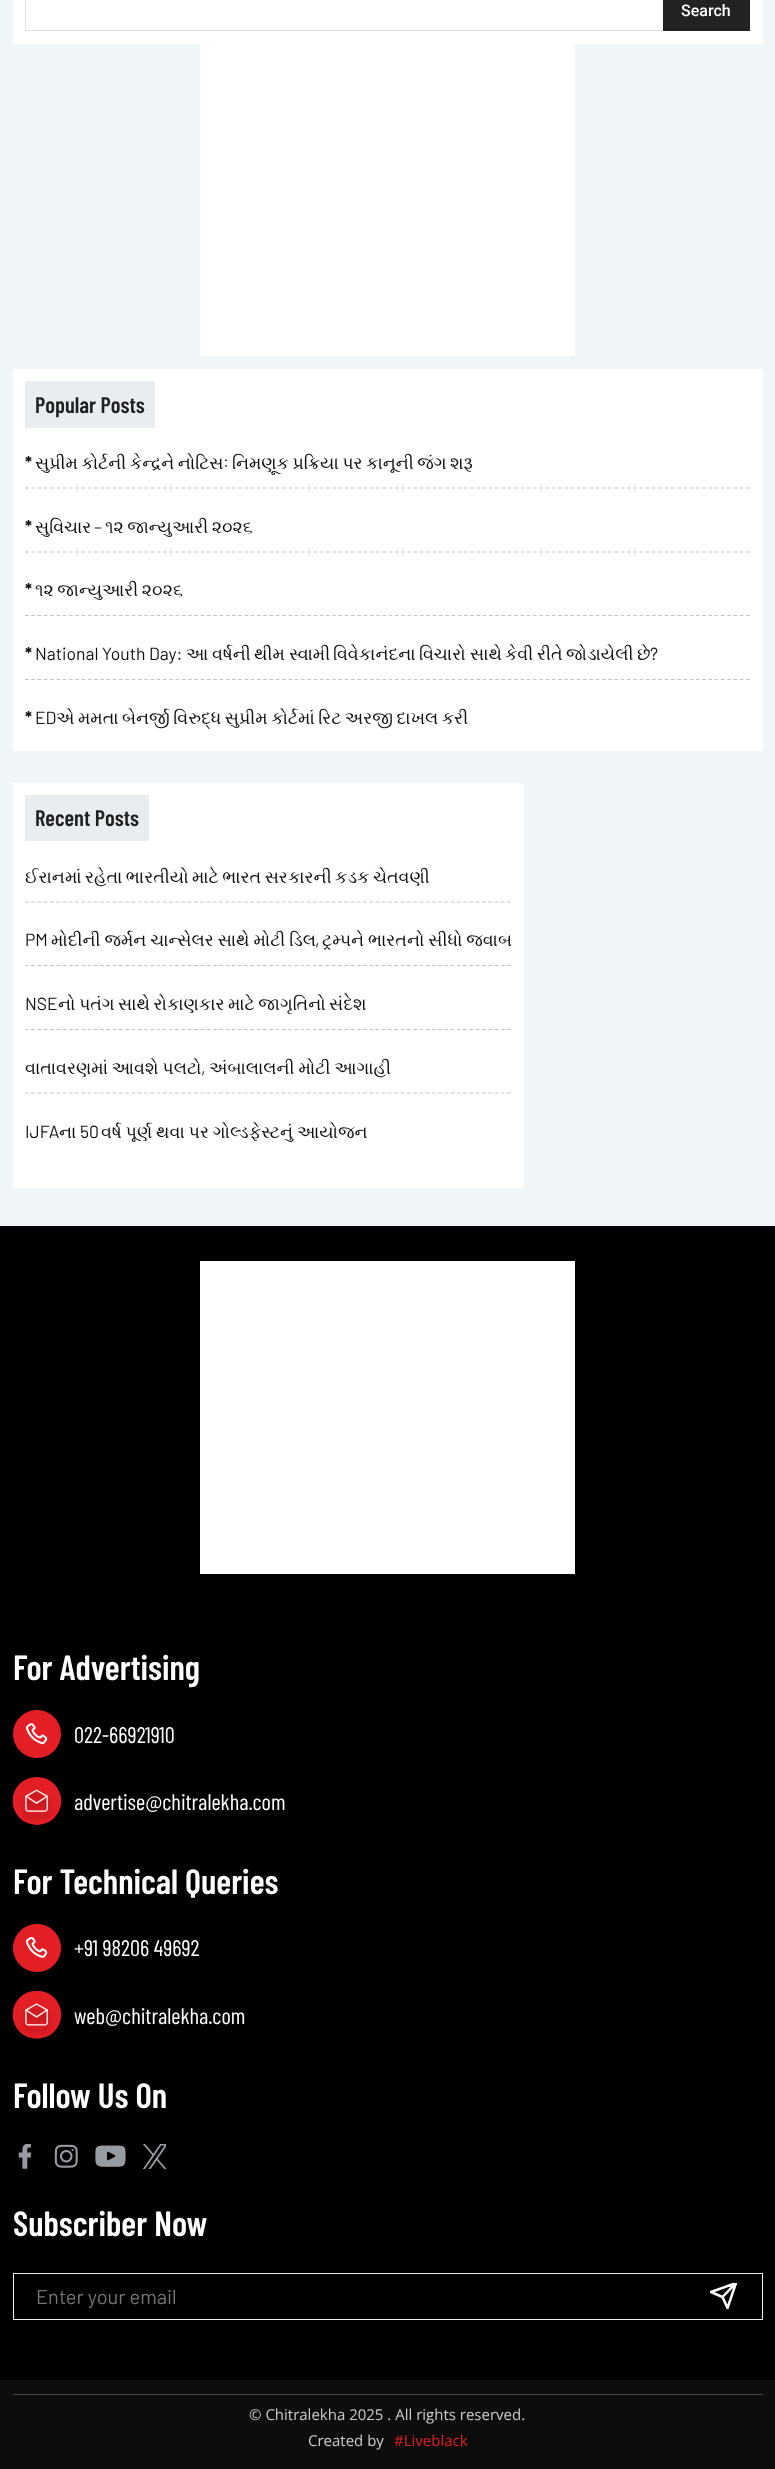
<svg xmlns="http://www.w3.org/2000/svg" width="775" height="2469" viewBox="0 0 775 2469">
  <defs>
    <clipPath id="clip1"><rect x="710" y="2283" width="28" height="27"/></clipPath>
  </defs>
  <rect width="100%" height="100%" fill="rgb(240,245,248)"/>
  <rect x="13" y="0" width="750" height="44" fill="rgb(255,255,255)"/>
  <rect x="25" y="30" width="638" height="1" fill="rgb(225,225,225)"/>
  <rect x="25" y="0" width="1" height="31" fill="rgb(225,225,225)"/>
  <rect x="663" y="0" width="87" height="31" fill="rgb(34,34,34)"/>
  <text x="681" y="16" font-family="Roboto" font-size="16" font-weight="500" fill="rgb(255,255,255)">Search</text>
  <rect x="200" y="44" width="375" height="312" fill="rgb(255,255,255)"/>
  <rect x="13" y="369" width="750" height="382" fill="rgb(255,255,255)"/>
  <rect x="25" y="381" width="130" height="47" fill="rgb(234,237,239)"/>
  <text x="35" y="413" font-family="Barlow Condensed" font-size="22.5" font-weight="600" fill="rgb(30,32,34)">Popular Posts</text>
  <path d="M25 488H750" fill="none" stroke="rgb(193,197,203)" stroke-width="1.2" stroke-dasharray="3.75 2.52"/>
  <text x="25" y="469" font-family="Barlow" font-size="17.5" font-weight="bold" fill="rgb(17,17,17)">*</text>
  <text x="35" y="469" word-spacing="-0.9" font-family="FreeSerif" font-size="17.5" fill="rgb(17,17,17)">સુપ્રીમ કોર્ટની કેન્દ્રને નોટિસઃ નિમણૂક પ્રક્રિયા પર કાનૂની જંગ શરૂ</text>
  <path d="M25 552H750" fill="none" stroke="rgb(193,197,203)" stroke-width="1.2" stroke-dasharray="3.75 2.52"/>
  <text x="25" y="533" font-family="Barlow" font-size="17.5" font-weight="bold" fill="rgb(17,17,17)">*</text>
  <g font-family="FreeSerif" font-size="17.5" fill="rgb(17,17,17)">
    <text x="35" y="533">સુવિચાર</text>
    <text x="105" y="533" word-spacing="-1">૧૨ જાન્યુઆરી ૨૦૨૬</text>
  </g>
  <text x="94" y="533" font-family="Barlow" font-size="17.5" fill="rgb(17,17,17)">–</text>
  <path d="M25 615.5H750" fill="none" stroke="rgb(193,197,203)" stroke-width="1.2" stroke-dasharray="3.75 2.52"/>
  <text x="25" y="596" font-family="Barlow" font-size="17.5" font-weight="bold" fill="rgb(17,17,17)">*</text>
  <text x="35" y="596" word-spacing="-0.9" font-family="FreeSerif" font-size="17.5" fill="rgb(17,17,17)">૧૨ જાન્યુઆરી ૨૦૨૬</text>
  <path d="M25 679.5H750" fill="none" stroke="rgb(193,197,203)" stroke-width="1.2" stroke-dasharray="3.75 2.52"/>
  <text x="25" y="660" font-family="Barlow" font-size="17.5" font-weight="bold" fill="rgb(17,17,17)">*</text>
  <text x="35" y="660" font-family="Barlow" font-size="17.5" fill="rgb(17,17,17)">National Youth Day:</text>
  <g font-family="FreeSerif" font-size="17.5" fill="rgb(17,17,17)">
    <text x="186" y="660">આ</text>
    <text x="212" y="660">વર્ષની</text>
    <text x="254" y="660">થીમ</text>
    <text x="289" y="660">સ્વામી</text>
    <text x="333" y="660">વિવેકાનંદના</text>
    <text x="419" y="660">વિચારો</text>
    <text x="470" y="660">સાથે</text>
    <text x="505" y="660">કેવી</text>
    <text x="537" y="660">રીતે</text>
    <text x="566" y="660">જોડાયેલી</text>
    <text x="637" y="660">છે</text>
  </g>
  <text x="650" y="660" font-family="Barlow" font-size="17.5" fill="rgb(17,17,17)">?</text>
  <text x="25" y="724" font-family="Barlow" font-size="17.5" font-weight="bold" fill="rgb(17,17,17)">*</text>
  <text x="35" y="724" font-family="Barlow" font-size="17.5" fill="rgb(17,17,17)">ED</text>
  <text x="56" y="724" word-spacing="-0.9" font-family="FreeSerif" font-size="17.5" fill="rgb(17,17,17)">એ મમતા બેનર્જી વિરુદ્ધ સુપ્રીમ કોર્ટમાં રિટ અરજી દાખલ કરી</text>
  <rect x="13" y="783" width="511" height="405" fill="rgb(255,255,255)"/>
  <rect x="25" y="795" width="124" height="46" fill="rgb(234,237,239)"/>
  <text x="35" y="826" font-family="Barlow Condensed" font-size="22.5" font-weight="600" fill="rgb(30,32,34)">Recent Posts</text>
  <path d="M25 902H511" fill="none" stroke="rgb(193,197,203)" stroke-width="1.2" stroke-dasharray="3.75 2.51"/>
  <text x="25" y="883" word-spacing="-0.9" font-family="FreeSerif" font-size="17.5" fill="rgb(17,17,17)">ઈરાનમાં રહેતા ભારતીયો માટે ભારત સરકારની કડક ચેતવણી</text>
  <path d="M25 965.5H511" fill="none" stroke="rgb(193,197,203)" stroke-width="1.2" stroke-dasharray="3.75 2.51"/>
  <text x="25" y="946" font-family="Barlow" font-size="17.5" fill="rgb(17,17,17)">PM</text>
  <text x="51" y="946" word-spacing="-0.5" font-family="FreeSerif" font-size="17.5" fill="rgb(17,17,17)">મોદીની જર્મન ચાન્સેલર સાથે મોટી ડિલ</text>
  <text x="315" y="946" font-family="Barlow" font-size="17.5" fill="rgb(17,17,17)">,</text>
  <text x="322" y="946" word-spacing="-0.5" font-family="FreeSerif" font-size="17.5" fill="rgb(17,17,17)">ટ્રમ્પને ભારતનો સીધો જવાબ</text>
  <path d="M25 1029.5H511" fill="none" stroke="rgb(193,197,203)" stroke-width="1.2" stroke-dasharray="3.75 2.51"/>
  <text x="25" y="1010" font-family="Barlow" font-size="17.5" fill="rgb(17,17,17)">NSE</text>
  <text x="58" y="1010" word-spacing="-0.9" font-family="FreeSerif" font-size="17.5" fill="rgb(17,17,17)">નો પતંગ સાથે રોકાણકાર માટે જાગૃતિનો સંદેશ</text>
  <path d="M25 1093H511" fill="none" stroke="rgb(193,197,203)" stroke-width="1.2" stroke-dasharray="3.75 2.51"/>
  <text x="25" y="1074" word-spacing="-0.5" font-family="FreeSerif" font-size="17.5" fill="rgb(17,17,17)">વાતાવરણમાં આવશે પલટો</text>
  <text x="201" y="1074" font-family="Barlow" font-size="17.5" fill="rgb(17,17,17)">,</text>
  <text x="209" y="1074" word-spacing="-0.5" font-family="FreeSerif" font-size="17.5" fill="rgb(17,17,17)">અંબાલાલની મોટી આગાહી</text>
  <text x="25" y="1138" font-family="Barlow" font-size="17.5" fill="rgb(17,17,17)">IJFA</text>
  <text x="59" y="1138" font-family="FreeSerif" font-size="17.5" fill="rgb(17,17,17)">ના</text>
  <text x="80" y="1138" font-family="Barlow" font-size="17.5" fill="rgb(17,17,17)">50</text>
  <text x="101" y="1138" word-spacing="-0.5" font-family="FreeSerif" font-size="17.5" fill="rgb(17,17,17)">વર્ષ પૂર્ણ થવા પર ગોલ્ડફેસ્ટનું આયોજન</text>
  <rect x="0" y="1226" width="775" height="1154" fill="rgb(0,0,0)"/>
  <rect x="200" y="1261" width="375" height="313" fill="rgb(255,255,255)"/>
  <text x="13" y="1680" font-family="Barlow Condensed" font-size="35" font-weight="600" fill="rgb(255,255,255)">For Advertising</text>
  <image x="13" y="1710" width="48" height="48" href="pic1.png"/>
  <text x="74" y="1743" font-family="Barlow Condensed" font-size="22.5" fill="rgb(255,255,255)">022-66921910</text>
  <image x="12" y="1777" width="50" height="48" href="pic2.png"/>
  <text x="74" y="1810" font-family="Barlow Condensed" font-size="22.5" fill="rgb(255,255,255)">advertise@chitralekha.com</text>
  <text x="13" y="1894" font-family="Barlow Condensed" font-size="35" font-weight="600" fill="rgb(255,255,255)">For Technical Queries</text>
  <image x="13" y="1924" width="48" height="48" href="pic3.png"/>
  <text x="74" y="1956" font-family="Barlow Condensed" font-size="22.5" fill="rgb(255,255,255)">+91 98206 49692</text>
  <image x="12" y="1990" width="50" height="49" href="pic4.png"/>
  <text x="74" y="2024" font-family="Barlow Condensed" font-size="22.5" fill="rgb(255,255,255)">web@chitralekha.com</text>
  <text x="13" y="2108" font-family="Barlow Condensed" font-size="35" font-weight="600" fill="rgb(255,255,255)">Follow Us On</text>
  <image x="18" y="2144" width="14" height="25" href="pic5.png"/>
  <image x="54" y="2144" width="24" height="24" href="pic6.png"/>
  <image x="95" y="2145" width="31" height="22" href="pic7.png"/>
  <image x="142" y="2144" width="24" height="25" href="pic8.png"/>
  <text x="13" y="2236" font-family="Barlow Condensed" font-size="35" font-weight="600" fill="rgb(255,255,255)">Subscriber Now</text>
  <rect x="13.5" y="2273.5" width="749" height="46" fill="none" stroke="rgb(239,239,239)"/>
  <text x="36" y="2304" font-family="Barlow" font-size="20" fill="rgb(117,117,117)">Enter your email</text>
  <g clip-path="url(#clip1)">
    <path d="M736 2283L722.5 2297M736 2283L727.5 2308L722.5 2297L711 2292Z" fill="none" stroke="rgb(255,255,255)" stroke-width="2.5" stroke-linecap="round" stroke-linejoin="round"/>
  </g>
  <rect x="0" y="2380" width="775" height="89" fill="rgb(13,13,13)"/>
  <rect x="13" y="2394" width="750" height="1" fill="rgb(69,69,69)"/>
  <g font-family="Open Sans" font-size="15" fill="rgb(204,204,204)">
    <text x="249" y="2420">© Chitralekha 2025 . All rights reserved.</text>
    <text x="308" y="2446">Created by</text>
  </g>
  <text x="394" y="2446" font-family="Open Sans" font-size="15" fill="rgb(226,30,35)">#Liveblack</text>
</svg>
